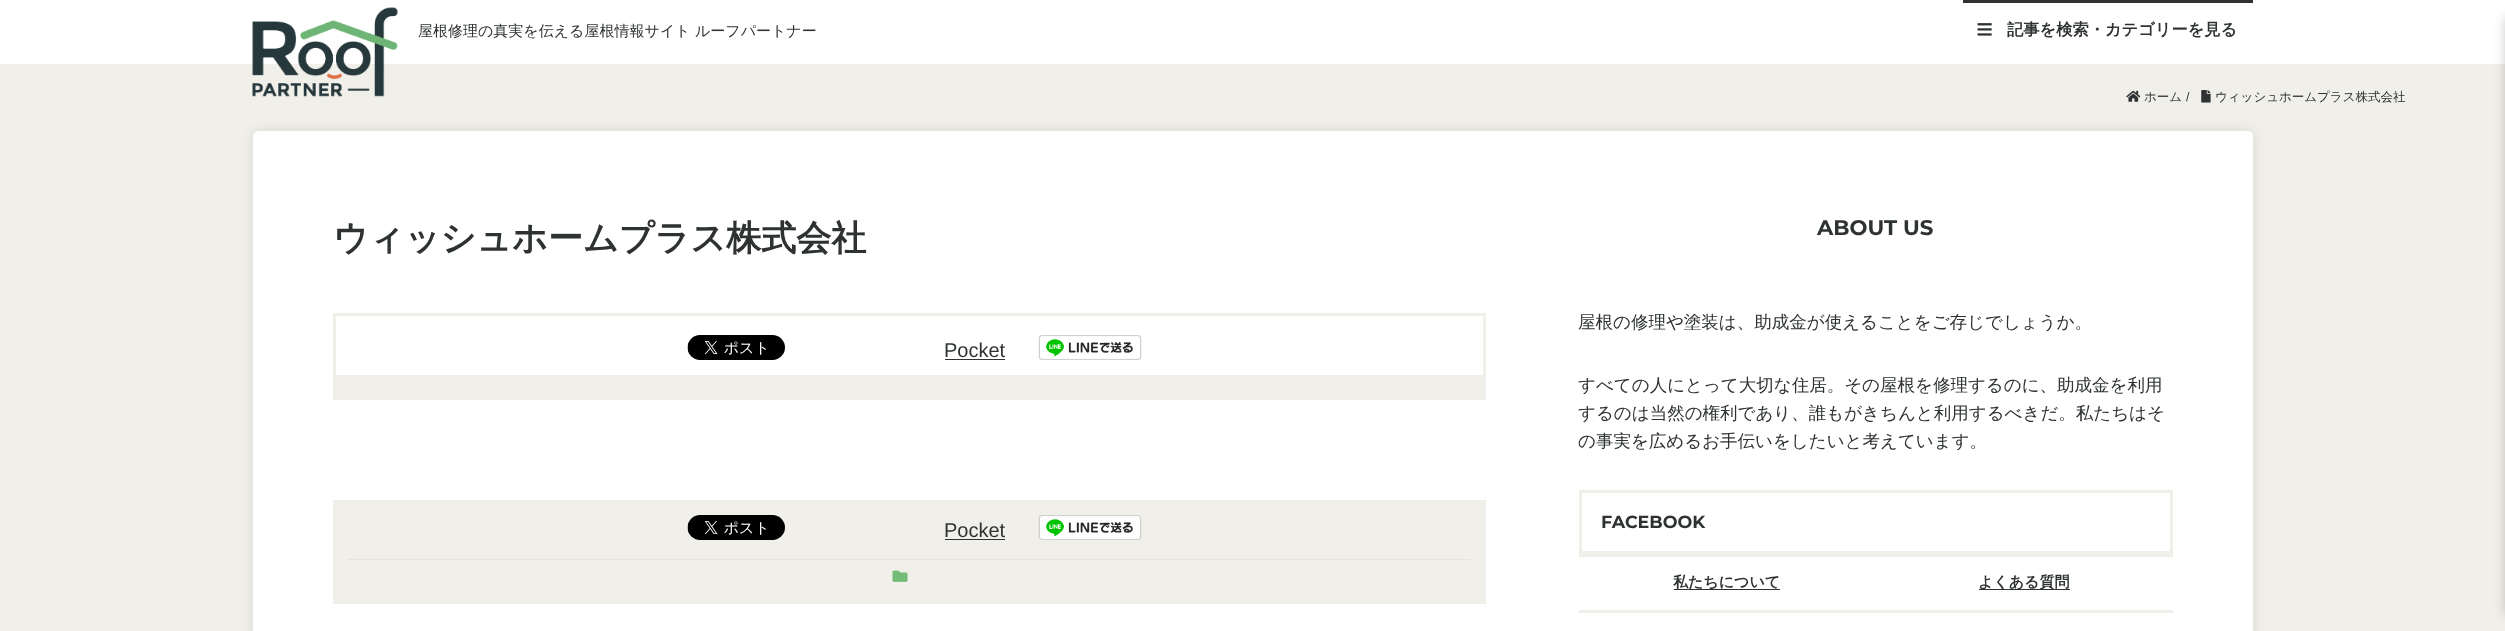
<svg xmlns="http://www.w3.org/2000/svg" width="2505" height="631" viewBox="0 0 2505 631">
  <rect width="100%" height="100%" fill="rgb(255,255,255)"/>
  <rect x="0" y="64" width="2505" height="567" fill="rgb(240,239,233)"/>
  <image x="252" y="7" width="146" height="90" href="pic1.png"/>
  <text x="418" y="36" font-family="WenQuanYi Zen Hei" font-size="15" font-weight="500" fill="rgb(46,50,51)">屋根修理の真実を伝える屋根情報サイト ルーフパートナー</text>
  <rect x="1963" y="0" width="290" height="3" fill="rgb(46,50,51)"/>
  <image x="1977" y="23" width="15" height="13" href="pic2.png"/>
  <text x="2007" y="35" font-family="WenQuanYi Zen Hei" font-size="16.25" font-weight="bold" fill="rgb(46,50,51)">記事を検索・カテゴリーを見る</text>
  <rect x="2505" y="16" width="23" height="599" rx="5" fill="rgba(0,0,0,0.2)" filter="blur(6px)"/>
  <image x="2126" y="90" width="15" height="12" href="pic3.png"/>
  <text x="2144" y="101" font-family="WenQuanYi Zen Hei" font-size="12.5" font-weight="500" fill="rgb(46,50,51)">ホーム</text>
  <text x="2186" y="101" font-family="Liberation Sans" font-size="12.5" fill="rgb(46,50,51)">/</text>
  <image x="2201" y="90" width="10" height="13" href="pic4.png"/>
  <text x="2215" y="101" font-family="WenQuanYi Zen Hei" font-size="12.5" font-weight="500" fill="rgb(46,50,51)">ウィッシュホームプラス株式会社</text>
  <rect x="253" y="131" width="2000" height="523" rx="5" fill="rgba(0,0,0,0.1)" filter="blur(6px)"/>
  <rect x="253" y="131" width="2000" height="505" rx="5" fill="rgb(255,255,255)"/>
  <text x="333" y="250" font-family="WenQuanYi Zen Hei" font-size="35" font-weight="bold" fill="rgb(46,50,51)">ウィッシュホームプラス株式会社</text>
  <rect x="334.5" y="314.5" width="1150" height="62" fill="none" stroke="rgb(240,239,233)" stroke-width="3"/>
  <image x="687" y="335" width="98" height="25" href="pic5.png"/>
  <text x="944" y="357" font-family="Liberation Sans" font-size="20" fill="rgb(46,50,51)">Pocket</text>
  <rect x="945" y="359" width="60" height="1" fill="rgb(46,50,51)"/>
  <image x="1038" y="335" width="104" height="25" href="pic6.png"/>
  <rect x="333" y="378" width="1153" height="22" fill="rgb(240,239,233)"/>
  <rect x="333" y="500" width="1153" height="104" fill="rgb(240,239,233)"/>
  <image x="687" y="515" width="98" height="25" href="pic7.png"/>
  <text x="944" y="537" font-family="Liberation Sans" font-size="20" fill="rgb(46,50,51)">Pocket</text>
  <rect x="945" y="539" width="60" height="1" fill="rgb(46,50,51)"/>
  <image x="1038" y="515" width="104" height="25" href="pic8.png"/>
  <rect x="348" y="559" width="1123" height="1" fill="rgb(229,228,222)"/>
  <image x="892" y="570" width="16" height="12" href="pic9.png"/>
  <text x="1817" y="235" font-family="Montserrat" font-size="21.25" font-weight="bold" fill="rgb(46,50,51)">ABOUT US</text>
  <g font-family="WenQuanYi Zen Hei" font-size="17.5" font-weight="500" fill="rgb(46,50,51)">
    <text x="1578" y="328">屋根の修理や塗装は、助成金が使えることをご存じでしょうか。</text>
    <text>
      <tspan x="1578" y="391">すべての人にとって大切な住居。その屋根を修理するのに、助成金を利用</tspan>
      <tspan x="1578" y="419">するのは当然の権利であり、誰もがきちんと利用するべきだ。私たちはそ</tspan>
      <tspan x="1578" y="447">の事実を広めるお手伝いをしたいと考えています。</tspan>
    </text>
  </g>
  <rect x="1580.5" y="491.5" width="591" height="61" fill="none" stroke="rgb(240,239,233)" stroke-width="3"/>
  <text x="1601" y="528" font-family="Montserrat" font-size="17.5" font-weight="bold" fill="rgb(46,50,51)">FACEBOOK</text>
  <rect x="1579" y="554" width="594" height="3" fill="rgb(240,239,233)"/>
  <rect x="1579" y="610" width="594" height="3" fill="rgb(240,239,233)"/>
  <rect x="1674" y="589" width="106" height="1" fill="rgb(46,50,51)"/>
  <text x="1673" y="587" font-family="WenQuanYi Zen Hei" font-size="15" font-weight="bold" fill="rgb(46,50,51)">私たちについて</text>
  <rect x="1979" y="589" width="91" height="1" fill="rgb(46,50,51)"/>
  <text x="1978" y="587" font-family="WenQuanYi Zen Hei" font-size="15" font-weight="bold" fill="rgb(46,50,51)">よくある質問</text>
</svg>
